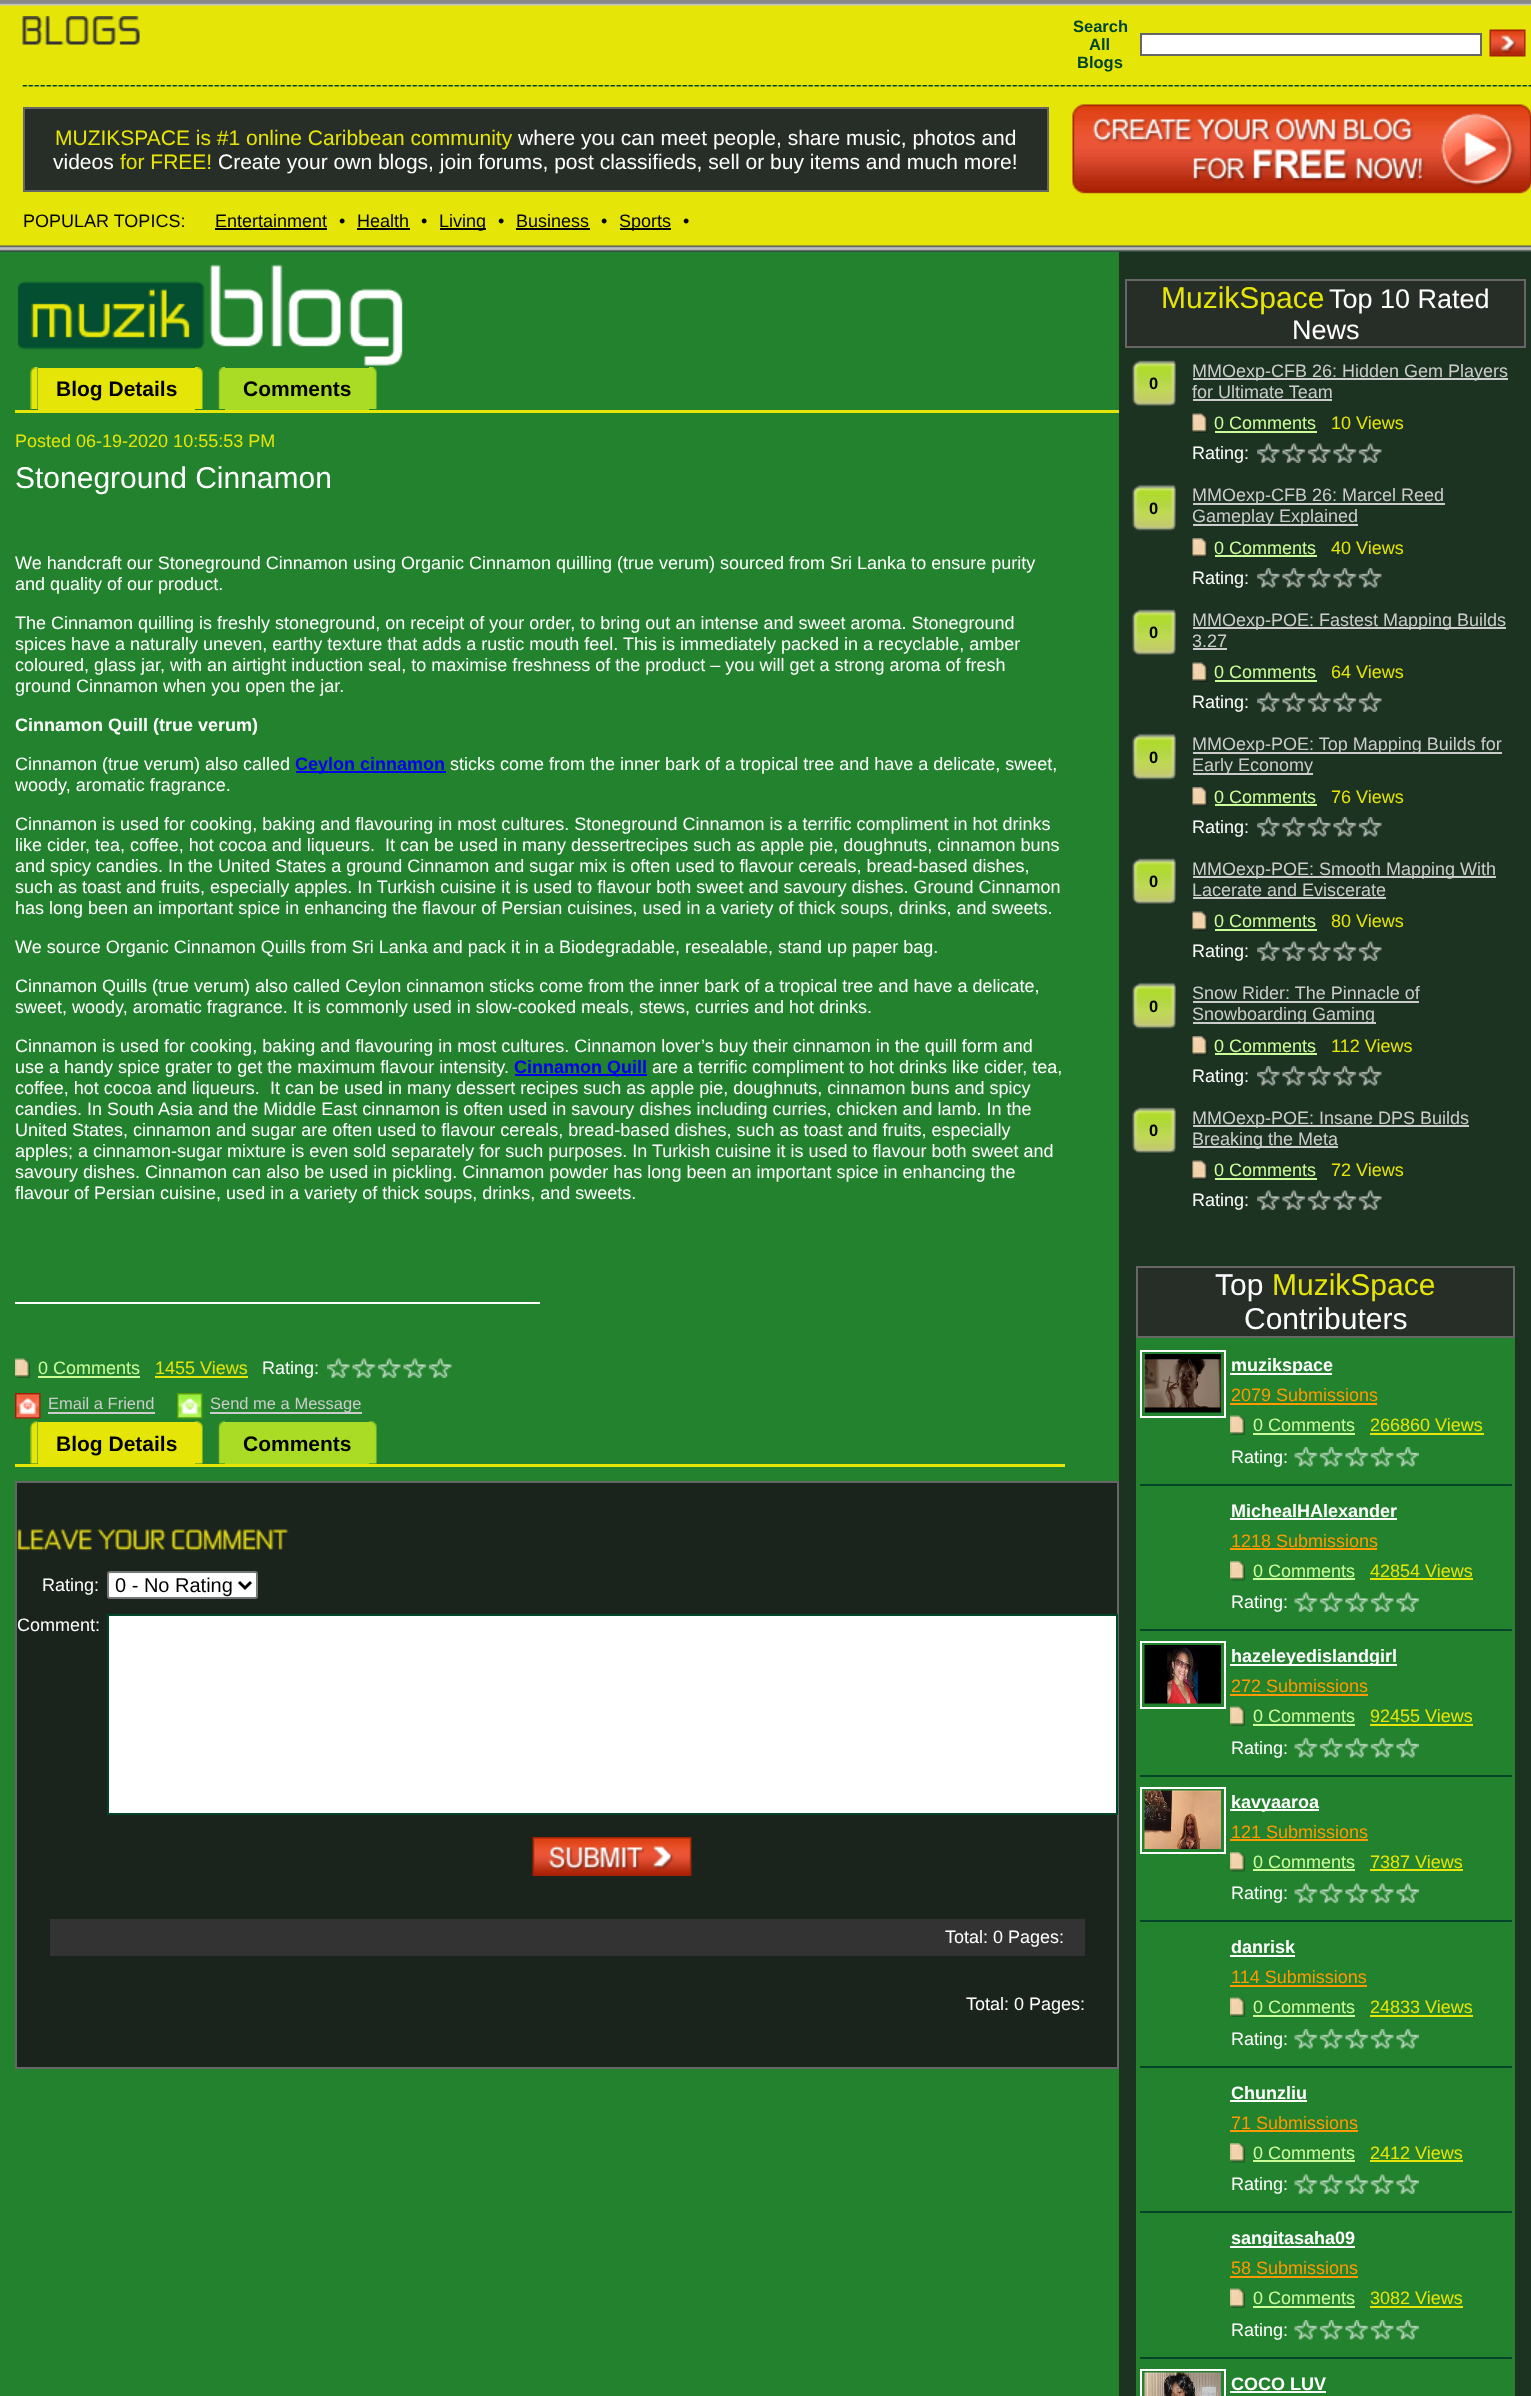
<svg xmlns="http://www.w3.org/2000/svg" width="1531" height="2396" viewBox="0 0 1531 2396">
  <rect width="100%" height="100%" fill="rgb(4,79,49)"/>
  <rect x="0" y="5" width="1531" height="241" fill="rgb(229,229,8)"/>
  <image x="0" y="0" width="1531" height="6" href="pic1.png"/>
  <image x="22" y="16" width="118" height="29" href="pic2.png"/>
  <g font-family="Liberation Sans" font-size="16.5" font-weight="bold" fill="rgb(0,68,42)">
    <text x="1073" y="32">Search</text>
    <text x="1089" y="50">All</text>
    <text x="1077" y="68">Blogs</text>
  </g>
  <rect x="1141" y="34" width="340" height="21" fill="rgb(255,255,255)" stroke="rgb(102,102,102)" stroke-width="2"/>
  <image x="1489" y="29" width="37" height="28" href="pic3.png"/>
  <image x="22" y="85" width="1509" height="2" href="pic4.png"/>
  <rect x="24" y="108" width="1024" height="83" fill="rgb(39,46,40)" stroke="rgb(102,102,102)" stroke-width="2"/>
  <text x="55" y="145" font-family="Liberation Sans" font-size="21" fill="rgb(229,229,8)">MUZIKSPACE is #1 online Caribbean community</text>
  <g font-family="Liberation Sans" font-size="21" fill="rgb(255,255,255)">
    <text x="518" y="145">where you can meet people, share music, photos and</text>
    <text x="53" y="169">videos</text>
  </g>
  <text x="120" y="169" font-family="Liberation Sans" font-size="21" fill="rgb(229,229,8)">for FREE!</text>
  <text x="218" y="169" font-family="Liberation Sans" font-size="21" fill="rgb(255,255,255)">Create your own blogs, join forums, post classifieds, sell or buy items and much more!</text>
  <image x="1072" y="104" width="459" height="90" href="pic5.png"/>
  <g font-family="Liberation Sans" font-size="18" fill="rgb(0,0,0)">
    <text x="23" y="227">POPULAR TOPICS:</text>
    <text x="215" y="227">Entertainment</text>
  </g>
  <rect x="215" y="228" width="112" height="2" fill="rgb(0,0,0)"/>
  <g font-family="Liberation Sans" font-size="18" fill="rgb(0,0,0)">
    <text x="339" y="227">•</text>
    <text x="357" y="227">Health</text>
  </g>
  <rect x="357" y="228" width="53" height="2" fill="rgb(0,0,0)"/>
  <text x="421" y="227" font-family="Liberation Sans" font-size="18" fill="rgb(0,0,0)">•</text>
  <rect x="440" y="228" width="46" height="2" fill="rgb(0,0,0)"/>
  <g font-family="Liberation Sans" font-size="18" fill="rgb(0,0,0)">
    <text x="439" y="227">Living</text>
    <text x="498" y="227">•</text>
    <text x="516" y="227">Business</text>
  </g>
  <rect x="516" y="228" width="74" height="2" fill="rgb(0,0,0)"/>
  <text x="601" y="227" font-family="Liberation Sans" font-size="18" fill="rgb(0,0,0)">•</text>
  <rect x="620" y="228" width="51" height="2" fill="rgb(0,0,0)"/>
  <g font-family="Liberation Sans" font-size="18" fill="rgb(0,0,0)">
    <text x="619" y="227">Sports</text>
    <text x="683" y="227">•</text>
  </g>
  <image x="0" y="245" width="1531" height="7" href="pic6.png"/>
  <rect x="0" y="252" width="1119" height="2144" fill="rgb(35,130,46)"/>
  <rect x="1119" y="252" width="412" height="2144" fill="rgb(29,51,33)"/>
  <rect x="1126" y="280" width="399" height="67" fill="rgb(39,46,40)" stroke="rgb(102,102,102)" stroke-width="2"/>
  <text x="1161" y="308" font-family="Liberation Sans" font-size="30" fill="rgb(229,229,8)">MuzikSpace</text>
  <g font-family="Liberation Sans" font-size="27" fill="rgb(255,255,255)">
    <text x="1329" y="308">Top 10 Rated</text>
    <text x="1292" y="339">News</text>
  </g>
  <image x="1132" y="360" width="44" height="46" href="pic7.png"/>
  <text x="1149" y="389" font-family="Liberation Sans" font-size="16.5" font-weight="bold" fill="rgb(0,0,0)">0</text>
  <rect x="1193" y="378" width="315" height="2" fill="rgb(204,204,204)"/>
  <g font-family="Liberation Sans" font-size="18" fill="rgb(204,204,204)">
    <text>
      <tspan x="1192" y="377">MMOexp-CFB 26: Hidden Gem Players</tspan>
      <tspan x="1192" y="398">for Ultimate Team</tspan>
    </text>
  </g>
  <rect x="1193" y="399" width="139" height="2" fill="rgb(204,204,204)"/>
  <image x="1192" y="413" width="16" height="20" href="pic8.png"/>
  <text x="1214" y="429" font-family="Liberation Sans" font-size="18" fill="rgb(204,255,153)">0 Comments</text>
  <rect x="1215" y="431" width="102" height="2" fill="rgb(204,255,153)"/>
  <text x="1331" y="429" font-family="Liberation Sans" font-size="18" fill="rgb(229,229,8)">10 Views</text>
  <text x="1192" y="459" font-family="Liberation Sans" font-size="18" fill="rgb(255,255,255)">Rating:</text>
  <image x="1257" y="443" width="125" height="20" href="pic9.png"/>
  <image x="1132" y="484" width="44" height="47" href="pic10.png"/>
  <text x="1149" y="514" font-family="Liberation Sans" font-size="16.5" font-weight="bold" fill="rgb(0,0,0)">0</text>
  <rect x="1193" y="503" width="252" height="2" fill="rgb(204,204,204)"/>
  <text x="1192" y="501" font-family="Liberation Sans" font-size="18" fill="rgb(204,204,204)">MMOexp-CFB 26: Marcel Reed</text>
  <rect x="1193" y="524" width="165" height="2" fill="rgb(204,204,204)"/>
  <text x="1192" y="522" font-family="Liberation Sans" font-size="18" fill="rgb(204,204,204)">Gameplay Explained</text>
  <image x="1192" y="538" width="16" height="20" href="pic11.png"/>
  <text x="1214" y="554" font-family="Liberation Sans" font-size="18" fill="rgb(204,255,153)">0 Comments</text>
  <rect x="1215" y="555" width="102" height="2" fill="rgb(204,255,153)"/>
  <text x="1331" y="554" font-family="Liberation Sans" font-size="18" fill="rgb(229,229,8)">40 Views</text>
  <text x="1192" y="584" font-family="Liberation Sans" font-size="18" fill="rgb(255,255,255)">Rating:</text>
  <image x="1257" y="568" width="125" height="20" href="pic12.png"/>
  <image x="1132" y="609" width="44" height="46" href="pic7.png"/>
  <text x="1149" y="638" font-family="Liberation Sans" font-size="16.5" font-weight="bold" fill="rgb(0,0,0)">0</text>
  <rect x="1193" y="627" width="313" height="2" fill="rgb(204,204,204)"/>
  <g font-family="Liberation Sans" font-size="18" fill="rgb(204,204,204)">
    <text>
      <tspan x="1192" y="626">MMOexp-POE: Fastest Mapping Builds</tspan>
      <tspan x="1192" y="647">3.27</tspan>
    </text>
  </g>
  <rect x="1193" y="648" width="34" height="2" fill="rgb(204,204,204)"/>
  <image x="1192" y="662" width="16" height="20" href="pic8.png"/>
  <text x="1214" y="678" font-family="Liberation Sans" font-size="18" fill="rgb(204,255,153)">0 Comments</text>
  <rect x="1215" y="680" width="102" height="2" fill="rgb(204,255,153)"/>
  <text x="1331" y="678" font-family="Liberation Sans" font-size="18" fill="rgb(229,229,8)">64 Views</text>
  <text x="1192" y="708" font-family="Liberation Sans" font-size="18" fill="rgb(255,255,255)">Rating:</text>
  <image x="1257" y="692" width="125" height="20" href="pic9.png"/>
  <image x="1132" y="733" width="44" height="47" href="pic10.png"/>
  <text x="1149" y="763" font-family="Liberation Sans" font-size="16.5" font-weight="bold" fill="rgb(0,0,0)">0</text>
  <rect x="1193" y="752" width="309" height="2" fill="rgb(204,204,204)"/>
  <text x="1192" y="750" font-family="Liberation Sans" font-size="18" fill="rgb(204,204,204)">MMOexp-POE: Top Mapping Builds for</text>
  <rect x="1193" y="773" width="120" height="2" fill="rgb(204,204,204)"/>
  <text x="1192" y="771" font-family="Liberation Sans" font-size="18" fill="rgb(204,204,204)">Early Economy</text>
  <image x="1192" y="787" width="16" height="20" href="pic11.png"/>
  <text x="1214" y="803" font-family="Liberation Sans" font-size="18" fill="rgb(204,255,153)">0 Comments</text>
  <rect x="1215" y="804" width="102" height="2" fill="rgb(204,255,153)"/>
  <text x="1331" y="803" font-family="Liberation Sans" font-size="18" fill="rgb(229,229,8)">76 Views</text>
  <text x="1192" y="833" font-family="Liberation Sans" font-size="18" fill="rgb(255,255,255)">Rating:</text>
  <image x="1257" y="817" width="125" height="20" href="pic12.png"/>
  <image x="1132" y="858" width="44" height="46" href="pic7.png"/>
  <text x="1149" y="887" font-family="Liberation Sans" font-size="16.5" font-weight="bold" fill="rgb(0,0,0)">0</text>
  <rect x="1193" y="876" width="303" height="2" fill="rgb(204,204,204)"/>
  <g font-family="Liberation Sans" font-size="18" fill="rgb(204,204,204)">
    <text>
      <tspan x="1192" y="875">MMOexp-POE: Smooth Mapping With</tspan>
      <tspan x="1192" y="896">Lacerate and Eviscerate</tspan>
    </text>
  </g>
  <rect x="1193" y="897" width="193" height="2" fill="rgb(204,204,204)"/>
  <image x="1192" y="911" width="16" height="20" href="pic8.png"/>
  <text x="1214" y="927" font-family="Liberation Sans" font-size="18" fill="rgb(204,255,153)">0 Comments</text>
  <rect x="1215" y="929" width="102" height="2" fill="rgb(204,255,153)"/>
  <text x="1331" y="927" font-family="Liberation Sans" font-size="18" fill="rgb(229,229,8)">80 Views</text>
  <text x="1192" y="957" font-family="Liberation Sans" font-size="18" fill="rgb(255,255,255)">Rating:</text>
  <image x="1257" y="941" width="125" height="20" href="pic9.png"/>
  <image x="1132" y="982" width="44" height="47" href="pic10.png"/>
  <text x="1149" y="1012" font-family="Liberation Sans" font-size="16.5" font-weight="bold" fill="rgb(0,0,0)">0</text>
  <text x="1192" y="999" font-family="Liberation Sans" font-size="18" fill="rgb(204,204,204)">Snow Rider: The Pinnacle of</text>
  <rect x="1193" y="1001" width="226" height="2" fill="rgb(204,204,204)"/>
  <rect x="1193" y="1022" width="183" height="2" fill="rgb(204,204,204)"/>
  <text x="1192" y="1020" font-family="Liberation Sans" font-size="18" fill="rgb(204,204,204)">Snowboarding Gaming</text>
  <image x="1192" y="1036" width="16" height="20" href="pic11.png"/>
  <text x="1214" y="1052" font-family="Liberation Sans" font-size="18" fill="rgb(204,255,153)">0 Comments</text>
  <rect x="1215" y="1053" width="102" height="2" fill="rgb(204,255,153)"/>
  <text x="1331" y="1052" font-family="Liberation Sans" font-size="18" fill="rgb(229,229,8)">112 Views</text>
  <text x="1192" y="1082" font-family="Liberation Sans" font-size="18" fill="rgb(255,255,255)">Rating:</text>
  <image x="1257" y="1066" width="125" height="20" href="pic12.png"/>
  <image x="1132" y="1107" width="44" height="46" href="pic7.png"/>
  <text x="1149" y="1136" font-family="Liberation Sans" font-size="16.5" font-weight="bold" fill="rgb(0,0,0)">0</text>
  <rect x="1193" y="1125" width="276" height="2" fill="rgb(204,204,204)"/>
  <text x="1192" y="1124" font-family="Liberation Sans" font-size="18" fill="rgb(204,204,204)">MMOexp-POE: Insane DPS Builds</text>
  <rect x="1193" y="1146" width="145" height="2" fill="rgb(204,204,204)"/>
  <text x="1192" y="1145" font-family="Liberation Sans" font-size="18" fill="rgb(204,204,204)">Breaking the Meta</text>
  <image x="1192" y="1160" width="16" height="20" href="pic8.png"/>
  <text x="1214" y="1176" font-family="Liberation Sans" font-size="18" fill="rgb(204,255,153)">0 Comments</text>
  <rect x="1215" y="1178" width="102" height="2" fill="rgb(204,255,153)"/>
  <text x="1331" y="1176" font-family="Liberation Sans" font-size="18" fill="rgb(229,229,8)">72 Views</text>
  <text x="1192" y="1206" font-family="Liberation Sans" font-size="18" fill="rgb(255,255,255)">Rating:</text>
  <image x="1257" y="1190" width="125" height="20" href="pic9.png"/>
  <rect x="1137" y="1267" width="377" height="70" fill="rgb(39,46,40)" stroke="rgb(102,102,102)" stroke-width="2"/>
  <text x="1215" y="1295" font-family="Liberation Sans" font-size="30" fill="rgb(255,255,255)">Top</text>
  <text x="1272" y="1295" font-family="Liberation Sans" font-size="30" fill="rgb(229,229,8)">MuzikSpace</text>
  <text x="1244" y="1329" font-family="Liberation Sans" font-size="30" fill="rgb(255,255,255)">Contributers</text>
  <rect x="1136" y="1338" width="379" height="1058" fill="rgb(35,130,46)"/>
  <rect x="1141" y="1351" width="84" height="66" fill="none" stroke="rgb(255,255,255)" stroke-width="2"/>
  <image x="1144" y="1354" width="77" height="59" href="pic13.png"/>
  <rect x="1230" y="1373" width="102" height="2" fill="rgb(255,255,255)"/>
  <text x="1231" y="1371" font-family="Liberation Sans" font-size="18" font-weight="bold" fill="rgb(255,255,255)">muzikspace</text>
  <text x="1231" y="1401" font-family="Liberation Sans" font-size="18" fill="rgb(255,153,0)">2079 Submissions</text>
  <rect x="1230" y="1403" width="147" height="2" fill="rgb(255,153,0)"/>
  <image x="1230" y="1415" width="15" height="20" href="pic14.png"/>
  <text x="1253" y="1431" font-family="Liberation Sans" font-size="18" fill="rgb(204,255,153)">0 Comments</text>
  <rect x="1253" y="1433" width="102" height="2" fill="rgb(204,255,153)"/>
  <text x="1370" y="1431" font-family="Liberation Sans" font-size="18" fill="rgb(229,229,8)">266860 Views</text>
  <rect x="1370" y="1433" width="114" height="2" fill="rgb(229,229,8)"/>
  <text x="1231" y="1463" font-family="Liberation Sans" font-size="18" fill="rgb(255,255,255)">Rating:</text>
  <image x="1294" y="1447" width="125" height="20" href="pic15.png"/>
  <rect x="1140" y="1484" width="372" height="2" fill="rgb(0,68,42)"/>
  <text x="1231" y="1517" font-family="Liberation Sans" font-size="18" font-weight="bold" fill="rgb(255,255,255)">MichealHAlexander</text>
  <rect x="1230" y="1518" width="167" height="2" fill="rgb(255,255,255)"/>
  <text x="1231" y="1547" font-family="Liberation Sans" font-size="18" fill="rgb(255,153,0)">1218 Submissions</text>
  <rect x="1230" y="1548" width="147" height="2" fill="rgb(255,153,0)"/>
  <image x="1230" y="1561" width="15" height="20" href="pic16.png"/>
  <text x="1253" y="1577" font-family="Liberation Sans" font-size="18" fill="rgb(204,255,153)">0 Comments</text>
  <rect x="1253" y="1578" width="102" height="2" fill="rgb(204,255,153)"/>
  <text x="1370" y="1577" font-family="Liberation Sans" font-size="18" fill="rgb(229,229,8)">42854 Views</text>
  <rect x="1370" y="1578" width="103" height="2" fill="rgb(229,229,8)"/>
  <text x="1231" y="1608" font-family="Liberation Sans" font-size="18" fill="rgb(255,255,255)">Rating:</text>
  <image x="1294" y="1592" width="125" height="20" href="pic17.png"/>
  <rect x="1140" y="1629" width="372" height="2" fill="rgb(0,68,42)"/>
  <rect x="1141" y="1642" width="84" height="66" fill="none" stroke="rgb(255,255,255)" stroke-width="2"/>
  <image x="1144" y="1645" width="77" height="59" href="pic18.png"/>
  <rect x="1230" y="1664" width="167" height="2" fill="rgb(255,255,255)"/>
  <text x="1231" y="1662" font-family="Liberation Sans" font-size="18" font-weight="bold" fill="rgb(255,255,255)">hazeleyedislandgirl</text>
  <text x="1231" y="1692" font-family="Liberation Sans" font-size="18" fill="rgb(255,153,0)">272 Submissions</text>
  <rect x="1230" y="1694" width="138" height="2" fill="rgb(255,153,0)"/>
  <image x="1230" y="1706" width="15" height="20" href="pic14.png"/>
  <text x="1253" y="1722" font-family="Liberation Sans" font-size="18" fill="rgb(204,255,153)">0 Comments</text>
  <rect x="1253" y="1724" width="102" height="2" fill="rgb(204,255,153)"/>
  <text x="1370" y="1722" font-family="Liberation Sans" font-size="18" fill="rgb(229,229,8)">92455 Views</text>
  <rect x="1370" y="1724" width="103" height="2" fill="rgb(229,229,8)"/>
  <text x="1231" y="1754" font-family="Liberation Sans" font-size="18" fill="rgb(255,255,255)">Rating:</text>
  <image x="1294" y="1738" width="125" height="20" href="pic15.png"/>
  <rect x="1140" y="1775" width="372" height="2" fill="rgb(0,68,42)"/>
  <rect x="1141" y="1788" width="84" height="65" fill="none" stroke="rgb(255,255,255)" stroke-width="2"/>
  <image x="1144" y="1790" width="77" height="59" href="pic19.png"/>
  <rect x="1230" y="1809" width="89" height="2" fill="rgb(255,255,255)"/>
  <text x="1231" y="1808" font-family="Liberation Sans" font-size="18" font-weight="bold" fill="rgb(255,255,255)">kavyaaroa</text>
  <text x="1231" y="1838" font-family="Liberation Sans" font-size="18" fill="rgb(255,153,0)">121 Submissions</text>
  <rect x="1230" y="1839" width="138" height="2" fill="rgb(255,153,0)"/>
  <image x="1230" y="1852" width="15" height="20" href="pic16.png"/>
  <text x="1253" y="1868" font-family="Liberation Sans" font-size="18" fill="rgb(204,255,153)">0 Comments</text>
  <rect x="1253" y="1869" width="102" height="2" fill="rgb(204,255,153)"/>
  <text x="1370" y="1868" font-family="Liberation Sans" font-size="18" fill="rgb(229,229,8)">7387 Views</text>
  <rect x="1370" y="1869" width="93" height="2" fill="rgb(229,229,8)"/>
  <text x="1231" y="1899" font-family="Liberation Sans" font-size="18" fill="rgb(255,255,255)">Rating:</text>
  <image x="1294" y="1883" width="125" height="20" href="pic17.png"/>
  <rect x="1140" y="1920" width="372" height="2" fill="rgb(0,68,42)"/>
  <text x="1231" y="1953" font-family="Liberation Sans" font-size="18" font-weight="bold" fill="rgb(255,255,255)">danrisk</text>
  <rect x="1230" y="1955" width="65" height="2" fill="rgb(255,255,255)"/>
  <text x="1231" y="1983" font-family="Liberation Sans" font-size="18" fill="rgb(255,153,0)">114 Submissions</text>
  <rect x="1230" y="1985" width="137" height="2" fill="rgb(255,153,0)"/>
  <image x="1230" y="1997" width="15" height="20" href="pic14.png"/>
  <text x="1253" y="2013" font-family="Liberation Sans" font-size="18" fill="rgb(204,255,153)">0 Comments</text>
  <rect x="1253" y="2015" width="102" height="2" fill="rgb(204,255,153)"/>
  <text x="1370" y="2013" font-family="Liberation Sans" font-size="18" fill="rgb(229,229,8)">24833 Views</text>
  <rect x="1370" y="2015" width="103" height="2" fill="rgb(229,229,8)"/>
  <text x="1231" y="2045" font-family="Liberation Sans" font-size="18" fill="rgb(255,255,255)">Rating:</text>
  <image x="1294" y="2029" width="125" height="20" href="pic15.png"/>
  <rect x="1140" y="2066" width="372" height="2" fill="rgb(0,68,42)"/>
  <text x="1231" y="2099" font-family="Liberation Sans" font-size="18" font-weight="bold" fill="rgb(255,255,255)">Chunzliu</text>
  <rect x="1230" y="2100" width="77" height="2" fill="rgb(255,255,255)"/>
  <text x="1231" y="2129" font-family="Liberation Sans" font-size="18" fill="rgb(255,153,0)">71 Submissions</text>
  <rect x="1230" y="2130" width="128" height="2" fill="rgb(255,153,0)"/>
  <image x="1230" y="2143" width="15" height="20" href="pic16.png"/>
  <text x="1253" y="2159" font-family="Liberation Sans" font-size="18" fill="rgb(204,255,153)">0 Comments</text>
  <rect x="1253" y="2160" width="102" height="2" fill="rgb(204,255,153)"/>
  <text x="1370" y="2159" font-family="Liberation Sans" font-size="18" fill="rgb(229,229,8)">2412 Views</text>
  <rect x="1370" y="2160" width="93" height="2" fill="rgb(229,229,8)"/>
  <text x="1231" y="2190" font-family="Liberation Sans" font-size="18" fill="rgb(255,255,255)">Rating:</text>
  <image x="1294" y="2174" width="125" height="20" href="pic17.png"/>
  <rect x="1140" y="2211" width="372" height="2" fill="rgb(0,68,42)"/>
  <rect x="1230" y="2246" width="125" height="2" fill="rgb(255,255,255)"/>
  <text x="1231" y="2244" font-family="Liberation Sans" font-size="18" font-weight="bold" fill="rgb(255,255,255)">sangitasaha09</text>
  <text x="1231" y="2274" font-family="Liberation Sans" font-size="18" fill="rgb(255,153,0)">58 Submissions</text>
  <rect x="1230" y="2276" width="128" height="2" fill="rgb(255,153,0)"/>
  <image x="1230" y="2288" width="15" height="20" href="pic14.png"/>
  <text x="1253" y="2304" font-family="Liberation Sans" font-size="18" fill="rgb(204,255,153)">0 Comments</text>
  <rect x="1253" y="2306" width="102" height="2" fill="rgb(204,255,153)"/>
  <text x="1370" y="2304" font-family="Liberation Sans" font-size="18" fill="rgb(229,229,8)">3082 Views</text>
  <rect x="1370" y="2306" width="93" height="2" fill="rgb(229,229,8)"/>
  <text x="1231" y="2336" font-family="Liberation Sans" font-size="18" fill="rgb(255,255,255)">Rating:</text>
  <image x="1294" y="2320" width="125" height="20" href="pic15.png"/>
  <rect x="1140" y="2357" width="372" height="2" fill="rgb(0,68,42)"/>
  <rect x="1141" y="2370" width="84" height="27" fill="none" stroke="rgb(255,255,255)" stroke-width="2"/>
  <image x="1144" y="2372" width="77" height="24" href="pic20.png"/>
  <text x="1231" y="2390" font-family="Liberation Sans" font-size="18" font-weight="bold" fill="rgb(255,255,255)">COCO LUV</text>
  <rect x="1230" y="2391" width="96" height="2" fill="rgb(255,255,255)"/>
  <image x="17" y="264" width="386" height="102" href="pic21.png"/>
  <image x="30" y="367" width="8" height="42" href="pic22.png"/>
  <rect x="38" y="368" width="157" height="42" fill="rgb(229,229,8)"/>
  <image x="195" y="367" width="8" height="42" href="pic23.png"/>
  <text x="56" y="396" font-family="Liberation Sans" font-size="21" font-weight="bold" fill="rgb(0,0,0)">Blog Details</text>
  <image x="217" y="367" width="8" height="42" href="pic24.png"/>
  <rect x="225" y="368" width="144" height="42" fill="rgb(170,220,37)"/>
  <image x="369" y="367" width="8" height="42" href="pic25.png"/>
  <text x="243" y="396" font-family="Liberation Sans" font-size="21" font-weight="bold" fill="rgb(0,0,0)">Comments</text>
  <rect x="15" y="410" width="1104" height="3" fill="rgb(229,229,8)"/>
  <text x="15" y="447" font-family="Liberation Sans" font-size="18" fill="rgb(229,229,8)">Posted 06-19-2020 10:55:53 PM</text>
  <text x="15" y="488" font-family="Liberation Sans" font-size="30" fill="rgb(255,255,255)">Stoneground Cinnamon</text>
  <g font-family="Liberation Sans" font-size="18" fill="rgb(255,255,255)">
    <text>
      <tspan x="15" y="569">We handcraft our Stoneground Cinnamon using Organic Cinnamon quilling (true verum) sourced from Sri Lanka to ensure purity</tspan>
      <tspan x="15" y="590">and quality of our product.</tspan>
    </text>
    <text>
      <tspan x="15" y="629">The Cinnamon quilling is freshly stoneground, on receipt of your order, to bring out an intense and sweet aroma. Stoneground</tspan>
      <tspan x="15" y="650">spices have a naturally uneven, earthy texture that adds a rustic mouth feel. This is immediately packed in a recyclable, amber</tspan>
      <tspan x="15" y="671">coloured, glass jar, with an airtight induction seal, to maximise freshness of the product – you will get a strong aroma of fresh</tspan>
      <tspan x="15" y="692">ground Cinnamon when you open the jar.</tspan>
    </text>
  </g>
  <text x="15" y="731" font-family="Liberation Sans" font-size="18" font-weight="bold" fill="rgb(255,255,255)">Cinnamon Quill (true verum)</text>
  <text x="15" y="770" font-family="Liberation Sans" font-size="18" fill="rgb(255,255,255)">Cinnamon (true verum) also called</text>
  <rect x="296" y="771" width="150" height="2" fill="rgb(0,0,238)"/>
  <text x="295" y="770" font-family="Liberation Sans" font-size="18" font-weight="bold" fill="rgb(0,0,238)">Ceylon cinnamon</text>
  <g font-family="Liberation Sans" font-size="18" fill="rgb(255,255,255)">
    <text x="450" y="770">sticks come from the inner bark of a tropical tree and have a delicate, sweet,</text>
    <text x="15" y="791">woody, aromatic fragrance.</text>
    <text>
      <tspan x="15" y="830">Cinnamon is used for cooking, baking and flavouring in most cultures. Stoneground Cinnamon is a terrific compliment in hot drinks</tspan>
      <tspan x="15" y="851">like cider, tea, coffee, hot cocoa and liqueurs.</tspan>
    </text>
    <text x="385" y="851">It can be used in many dessertrecipes such as apple pie, doughnuts, cinnamon buns</text>
    <text>
      <tspan x="15" y="872">and spicy candies. In the United States a ground Cinnamon and sugar mix is often used to flavour cereals, bread-based dishes,</tspan>
      <tspan x="15" y="893">such as toast and fruits, especially apples. In Turkish cuisine it is used to flavour both sweet and savoury dishes. Ground Cinnamon</tspan>
      <tspan x="15" y="914">has long been an important spice in enhancing the flavour of Persian cuisines, used in a variety of thick soups, drinks, and sweets.</tspan>
    </text>
    <text x="15" y="953">We source Organic Cinnamon Quills from Sri Lanka and pack it in a Biodegradable, resealable, stand up paper bag.</text>
    <text>
      <tspan x="15" y="992">Cinnamon Quills (true verum) also called Ceylon cinnamon sticks come from the inner bark of a tropical tree and have a delicate,</tspan>
      <tspan x="15" y="1013">sweet, woody, aromatic fragrance. It is commonly used in slow-cooked meals, stews, curries and hot drinks.</tspan>
    </text>
    <text>
      <tspan x="15" y="1052">Cinnamon is used for cooking, baking and flavouring in most cultures. Cinnamon lover’s buy their cinnamon in the quill form and</tspan>
      <tspan x="15" y="1073">use a handy spice grater to get the maximum flavour intensity.</tspan>
    </text>
  </g>
  <rect x="515" y="1074" width="132" height="2" fill="rgb(0,0,238)"/>
  <text x="514" y="1073" font-family="Liberation Sans" font-size="18" font-weight="bold" fill="rgb(0,0,238)">Cinnamon Quill</text>
  <g font-family="Liberation Sans" font-size="18" fill="rgb(255,255,255)">
    <text x="652" y="1073">are a terrific compliment to hot drinks like cider, tea,</text>
    <text x="15" y="1094">coffee, hot cocoa and liqueurs.</text>
    <text x="270" y="1094">It can be used in many dessert recipes such as apple pie, doughnuts, cinnamon buns and spicy</text>
    <text>
      <tspan x="15" y="1115">candies. In South Asia and the Middle East cinnamon is often used in savoury dishes including curries, chicken and lamb. In the</tspan>
      <tspan x="15" y="1136">United States, cinnamon and sugar are often used to flavour cereals, bread-based dishes, such as toast and fruits, especially</tspan>
      <tspan x="15" y="1157">apples; a cinnamon-sugar mixture is even sold separately for such purposes. In Turkish cuisine it is used to flavour both sweet and</tspan>
      <tspan x="15" y="1178">savoury dishes. Cinnamon can also be used in pickling. Cinnamon powder has long been an important spice in enhancing the</tspan>
      <tspan x="15" y="1199">flavour of Persian cuisine, used in a variety of thick soups, drinks, and sweets.</tspan>
    </text>
  </g>
  <rect x="15" y="1302" width="525" height="2" fill="rgb(255,255,255)"/>
  <image x="15" y="1358" width="15" height="20" href="pic26.png"/>
  <text x="38" y="1374" font-family="Liberation Sans" font-size="18" fill="rgb(204,255,153)">0 Comments</text>
  <rect x="38" y="1376" width="102" height="2" fill="rgb(204,255,153)"/>
  <text x="155" y="1374" font-family="Liberation Sans" font-size="18" fill="rgb(229,229,8)">1455 Views</text>
  <rect x="155" y="1376" width="93" height="2" fill="rgb(229,229,8)"/>
  <text x="262" y="1374" font-family="Liberation Sans" font-size="18" fill="rgb(255,255,255)">Rating:</text>
  <image x="327" y="1358" width="125" height="20" href="pic27.png"/>
  <image x="15" y="1393" width="26" height="26" href="pic28.png"/>
  <text x="48" y="1409" font-family="Liberation Sans" font-size="16.5" fill="rgb(204,204,204)">Email a Friend</text>
  <rect x="48" y="1412" width="107" height="2" fill="rgb(204,204,204)"/>
  <image x="177" y="1393" width="26" height="26" href="pic29.png"/>
  <rect x="210" y="1412" width="152" height="2" fill="rgb(204,204,204)"/>
  <text x="210" y="1409" font-family="Liberation Sans" font-size="16.5" fill="rgb(204,204,204)">Send me a Message</text>
  <image x="30" y="1421" width="8" height="43" href="pic30.png"/>
  <rect x="38" y="1422" width="157" height="42" fill="rgb(229,229,8)"/>
  <image x="195" y="1421" width="8" height="43" href="pic31.png"/>
  <text x="56" y="1451" font-family="Liberation Sans" font-size="21" font-weight="bold" fill="rgb(0,0,0)">Blog Details</text>
  <image x="217" y="1421" width="8" height="43" href="pic32.png"/>
  <rect x="225" y="1422" width="144" height="42" fill="rgb(170,220,37)"/>
  <image x="369" y="1421" width="8" height="43" href="pic33.png"/>
  <text x="243" y="1451" font-family="Liberation Sans" font-size="21" font-weight="bold" fill="rgb(0,0,0)">Comments</text>
  <rect x="15" y="1464" width="1050" height="3" fill="rgb(229,229,8)"/>
  <rect x="16" y="1482" width="1102" height="586" fill="rgb(27,36,28)" stroke="rgb(102,102,102)" stroke-width="2"/>
  <image x="17" y="1529" width="272" height="22" href="pic34.png"/>
  <text x="42" y="1591" font-family="Liberation Sans" font-size="18" fill="rgb(255,255,255)">Rating:</text>
  <rect x="108" y="1572" width="149" height="26" rx="2" fill="rgb(255,255,255)" stroke="rgb(118,118,118)" stroke-width="2"/>
  <path d="M239 1582L245 1588L251 1582" fill="none" stroke="rgb(0,0,0)" stroke-width="3"/>
  <text x="115" y="1592" font-family="Liberation Sans" font-size="20" fill="rgb(0,0,0)">0 - No Rating</text>
  <text x="17" y="1631" font-family="Liberation Sans" font-size="18" fill="rgb(255,255,255)">Comment:</text>
  <rect x="108" y="1615" width="1009" height="199" fill="rgb(255,255,255)" stroke="rgb(0,68,42)" stroke-width="2"/>
  <image x="532" y="1837" width="160" height="39" href="pic35.png"/>
  <rect x="50" y="1919" width="1035" height="37" fill="rgb(51,51,51)"/>
  <g font-family="Liberation Sans" font-size="18" fill="rgb(255,255,255)">
    <text x="945" y="1943">Total: 0 Pages:</text>
    <text x="966" y="2010">Total: 0 Pages:</text>
  </g>
</svg>
